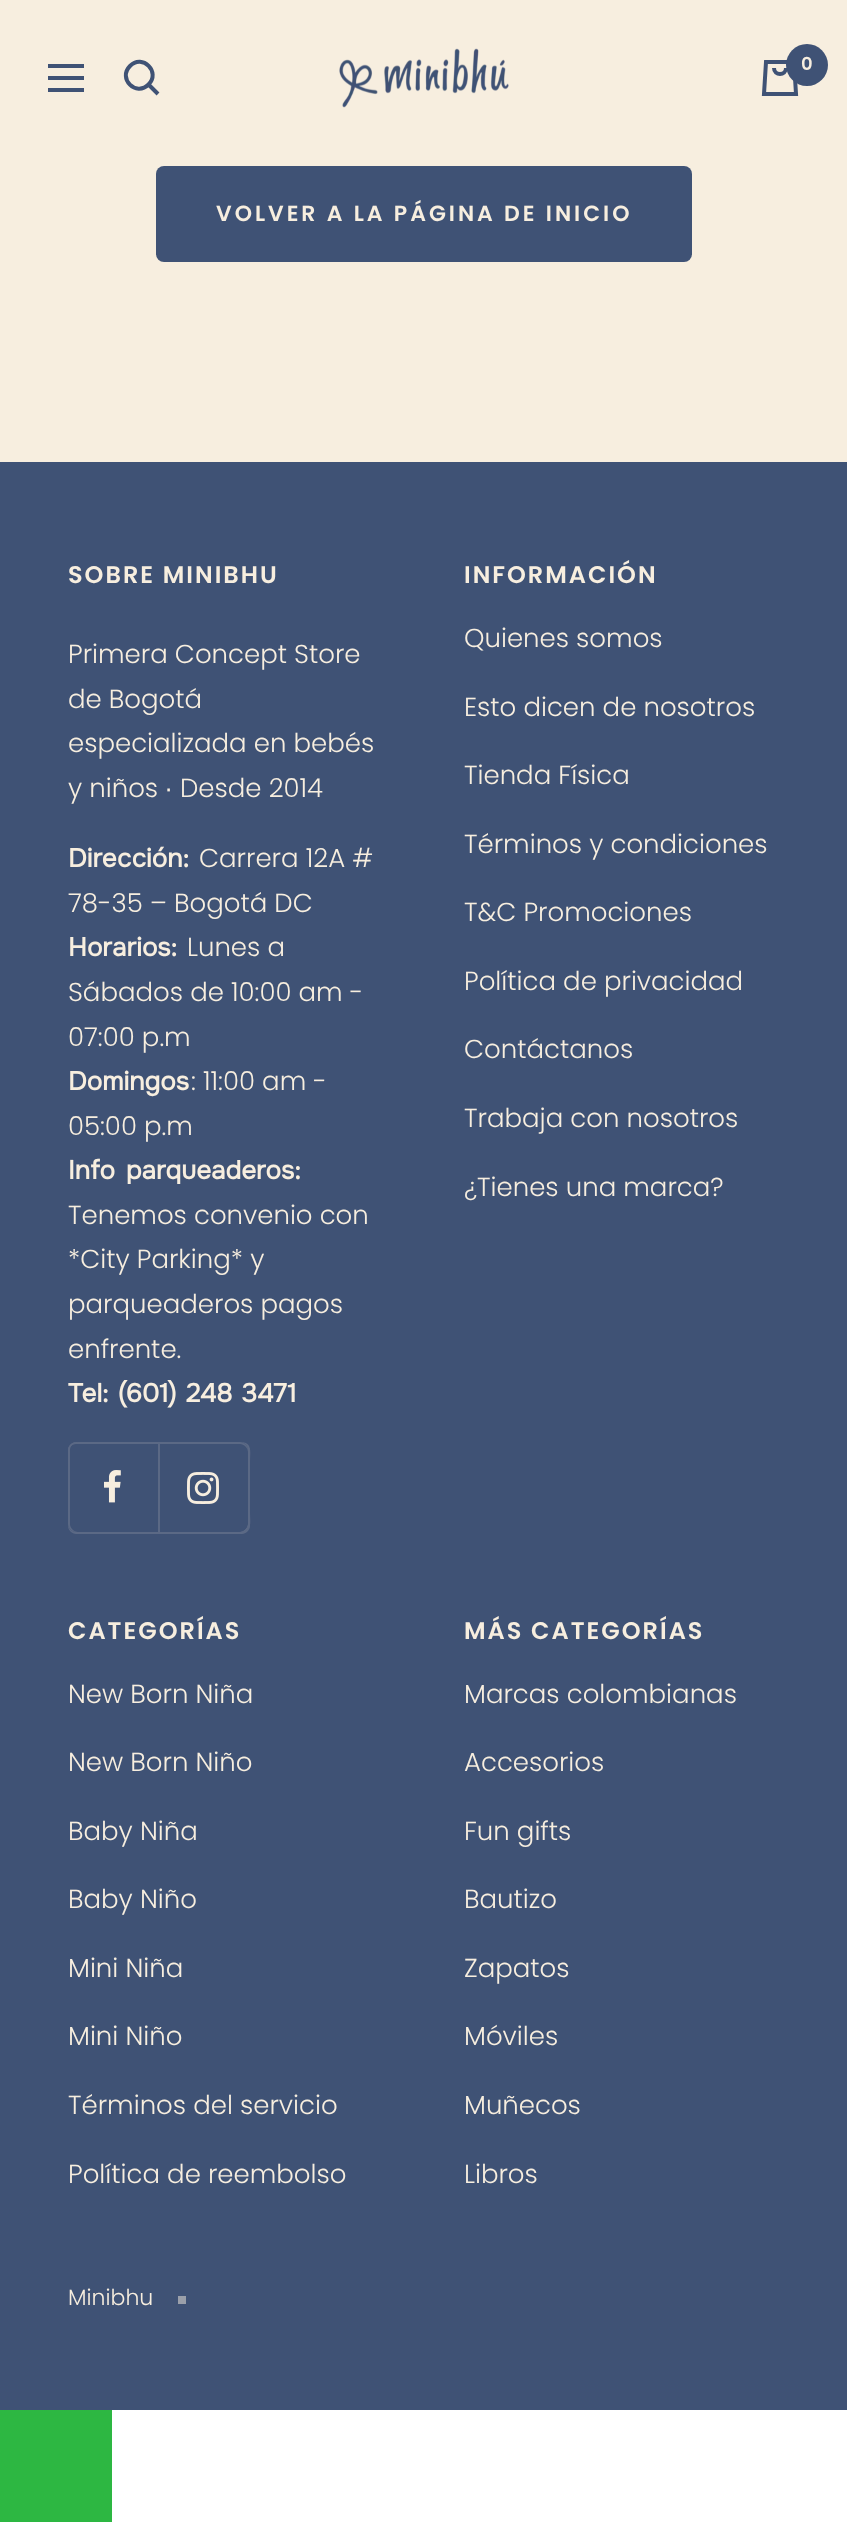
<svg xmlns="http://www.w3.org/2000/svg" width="847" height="2522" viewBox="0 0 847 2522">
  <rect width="100%" height="100%" fill="rgb(255,255,255)"/>
  <rect x="0" y="0" width="847" height="462" fill="rgb(247,238,223)"/>
  <path d="M48 66H84M48 90H84ZM48 78H84Z" fill="none" stroke="rgb(63,82,117)" stroke-width="4"/>
  <path d="M148.5 84.5C161 72 142.5 53.5 130 66C117.5 78.5 136 97 148.5 84.5ZM148.5 84.5L158 94" fill="none" stroke="rgb(63,82,117)" stroke-width="4"/>
  <image x="339" y="48" width="170" height="60" href="pic1.png"/>
  <path d="M766 62H794L796 94H764ZM774 68C774 76 786 76 786 68" fill="none" stroke="rgb(63,82,117)" stroke-width="4"/>
  <circle cx="807" cy="65" r="21" fill="rgb(63,82,117)"/>
  <text x="801" y="70" font-family="Poppins" font-size="18" font-weight="600" fill="rgb(247,238,223)">0</text>
  <rect x="156" y="166" width="536" height="96" rx="8" fill="rgb(63,82,117)"/>
  <text x="216" y="221" font-family="Poppins" font-size="22" font-weight="600" letter-spacing="3" fill="rgb(247,238,223)">VOLVER A LA PÁGINA DE INICIO</text>
  <rect x="0" y="462" width="847" height="1948" fill="rgb(63,82,117)"/>
  <text x="68" y="583" font-family="Poppins" font-size="24" font-weight="600" letter-spacing="2" fill="rgb(247,238,223)">SOBRE MINIBHU</text>
  <g font-family="Poppins" font-size="26" font-weight="300" fill="rgb(247,238,223)">
    <text>
      <tspan x="68" y="663">Primera Concept Store</tspan>
      <tspan x="68" y="708">de Bogotá</tspan>
      <tspan x="68" y="752">especializada en bebés</tspan>
      <tspan x="68" y="797">y niños</tspan>
    </text>
  </g>
  <text x="165" y="797" font-family="Liberation Sans" font-size="26" fill="rgb(247,238,223)">∙</text>
  <text x="180" y="797" font-family="Poppins" font-size="26" font-weight="300" fill="rgb(247,238,223)">Desde 2014</text>
  <text x="68" y="867" font-family="Onest" font-size="26" font-weight="bold" fill="rgb(247,238,223)">Dirección:</text>
  <g font-family="Poppins" font-size="26" font-weight="300" fill="rgb(247,238,223)">
    <text x="199" y="867">Carrera 12A #</text>
    <text x="68" y="912">78-35 – Bogotá DC</text>
  </g>
  <text x="68" y="956" font-family="Onest" font-size="26" font-weight="bold" fill="rgb(247,238,223)">Horarios:</text>
  <g font-family="Poppins" font-size="26" font-weight="300" fill="rgb(247,238,223)">
    <text x="187" y="956">Lunes a</text>
    <text>
      <tspan x="68" y="1001">Sábados de 10:00 am -</tspan>
      <tspan x="68" y="1046">07:00 p.m</tspan>
    </text>
  </g>
  <text x="68" y="1090" font-family="Onest" font-size="26" font-weight="bold" fill="rgb(247,238,223)">Domingos</text>
  <g font-family="Poppins" font-size="26" font-weight="300" fill="rgb(247,238,223)">
    <text x="191" y="1090">: 11:00 am -</text>
    <text x="68" y="1135">05:00 p.m</text>
  </g>
  <text x="68" y="1179" word-spacing="4" font-family="Onest" font-size="26" font-weight="bold" fill="rgb(247,238,223)">Info parqueaderos:</text>
  <g font-family="Poppins" font-size="26" font-weight="300" fill="rgb(247,238,223)">
    <text>
      <tspan x="68" y="1224">Tenemos convenio con</tspan>
      <tspan x="68" y="1268">*City Parking* y</tspan>
      <tspan x="68" y="1313">parqueaderos pagos</tspan>
      <tspan x="68" y="1358">enfrente.</tspan>
    </text>
  </g>
  <text x="68" y="1402" word-spacing="2" font-family="Onest" font-size="26" font-weight="bold" fill="rgb(247,238,223)">Tel: (601) 248 3471</text>
  <path d="M68 1524V1526C68 1530 72 1534 76 1534H158V1532H76C72 1532 68 1528 68 1524Z" fill="rgb(91,105,133)"/>
  <rect x="158" y="1442" width="2" height="90" fill="rgb(91,105,133)"/>
  <path d="M76 1444H158V1442H76C72 1442 68 1446 68 1450V1452C68 1448 72 1444 76 1444Z" fill="rgb(91,105,133)"/>
  <path d="M76 1442C72 1442 68 1446 68 1450V1524C68 1528 72 1532 76 1532H78C74 1532 70 1528 70 1524V1450C70 1446 74 1442 78 1442Z" fill="rgb(91,105,133)"/>
  <image x="104" y="1470" width="17" height="33" href="pic2.png"/>
  <path d="M160 1532V1534H242C246 1534 250 1530 250 1526V1452C250 1449 249 1447 247 1445C247 1447 248 1448 248 1450V1524C248 1528 244 1532 240 1532Z" fill="rgb(91,105,133)"/>
  <path d="M158 1532V1534H240C244 1534 248 1530 248 1526V1524C248 1528 244 1532 240 1532Z" fill="rgb(91,105,133)"/>
  <path d="M240 1532C253 1532 250 1522 250 1512V1462C250 1452 253 1442 240 1442C244 1442 248 1446 248 1450V1524C248 1528 244 1532 240 1532Z" fill="rgb(91,105,133)"/>
  <path d="M158 1444H240C244 1444 248 1448 248 1452V1450C248 1446 244 1442 240 1442H158Z" fill="rgb(91,105,133)"/>
  <image x="187" y="1472" width="32" height="32" href="pic3.png"/>
  <text x="464" y="583" font-family="Poppins" font-size="24" font-weight="600" letter-spacing="2" fill="rgb(247,238,223)">INFORMACIÓN</text>
  <g font-family="Poppins" font-size="26" font-weight="300" fill="rgb(247,238,223)">
    <text x="464" y="647">Quienes somos</text>
    <text x="464" y="716">Esto dicen de nosotros</text>
    <text x="464" y="784">Tienda Física</text>
    <text x="464" y="853">Términos y condiciones</text>
    <text x="464" y="921">T&amp;C Promociones</text>
    <text x="464" y="990">Política de privacidad</text>
    <text x="464" y="1058">Contáctanos</text>
    <text x="464" y="1127">Trabaja con nosotros</text>
    <text x="464" y="1196">¿Tienes una marca?</text>
  </g>
  <text x="68" y="1639" font-family="Poppins" font-size="24" font-weight="600" letter-spacing="2" fill="rgb(247,238,223)">CATEGORÍAS</text>
  <g font-family="Poppins" font-size="26" font-weight="300" fill="rgb(247,238,223)">
    <text x="68" y="1703">New Born Niña</text>
    <text x="68" y="1771">New Born Niño</text>
    <text x="68" y="1840">Baby Niña</text>
    <text x="68" y="1908">Baby Niño</text>
    <text x="68" y="1977">Mini Niña</text>
    <text x="68" y="2045">Mini Niño</text>
    <text x="68" y="2114">Términos del servicio</text>
    <text x="68" y="2183">Política de reembolso</text>
  </g>
  <text x="464" y="1639" font-family="Poppins" font-size="24" font-weight="600" letter-spacing="2" fill="rgb(247,238,223)">MÁS CATEGORÍAS</text>
  <g font-family="Poppins" font-size="26" font-weight="300" fill="rgb(247,238,223)">
    <text x="464" y="1703">Marcas colombianas</text>
    <text x="464" y="1771">Accesorios</text>
    <text x="464" y="1840">Fun gifts</text>
    <text x="464" y="1908">Bautizo</text>
    <text x="464" y="1977">Zapatos</text>
    <text x="464" y="2045">Móviles</text>
    <text x="464" y="2114">Muñecos</text>
    <text x="464" y="2183">Libros</text>
  </g>
  <text x="68" y="2305" font-family="Poppins" font-size="22" font-weight="300" fill="rgb(247,238,223)">Minibhu</text>
  <rect x="178" y="2296" width="8" height="8" fill="rgb(155,160,170)"/>
  <rect x="0" y="2410" width="112" height="112" fill="rgb(45,183,66)"/>
</svg>
